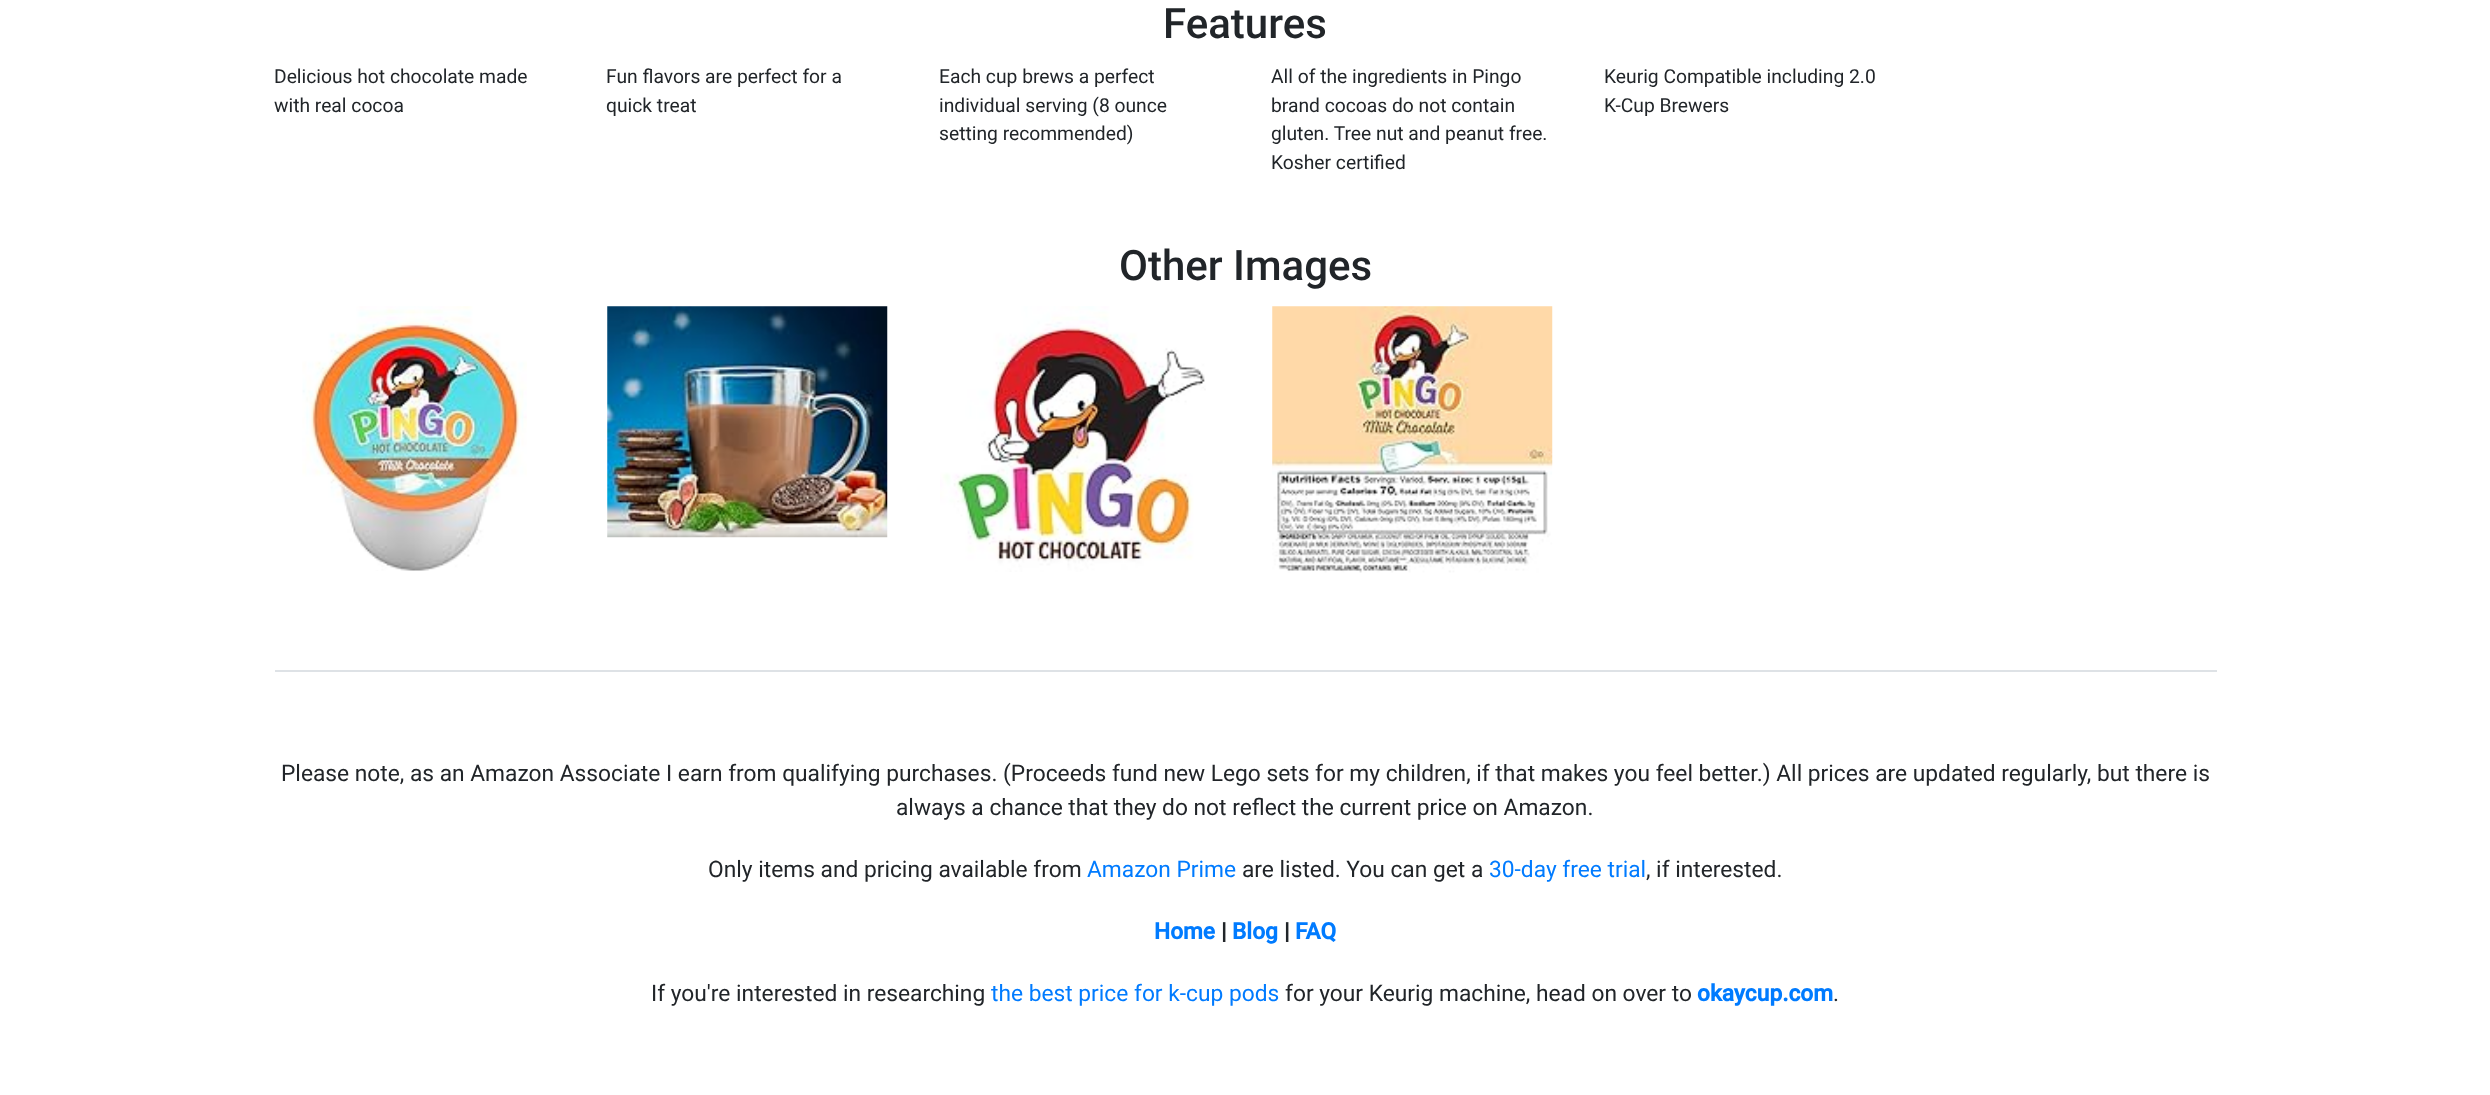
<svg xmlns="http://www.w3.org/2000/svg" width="2490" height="1095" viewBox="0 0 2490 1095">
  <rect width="100%" height="100%" fill="rgb(255,255,255)"/>
  <text x="1163" y="38" font-family="Roboto" font-size="42" font-weight="500" fill="rgb(33,37,41)">Features</text>
  <g font-family="Roboto" font-size="19.25" fill="rgb(33,37,41)">
    <text>
      <tspan x="274" y="83">Delicious hot chocolate made</tspan>
      <tspan x="274" y="112">with real cocoa</tspan>
    </text>
    <text>
      <tspan x="606" y="83">Fun flavors are perfect for a</tspan>
      <tspan x="606" y="112">quick treat</tspan>
    </text>
    <text>
      <tspan x="939" y="83">Each cup brews a perfect</tspan>
      <tspan x="939" y="112">individual serving (8 ounce</tspan>
      <tspan x="939" y="140">setting recommended)</tspan>
    </text>
    <text>
      <tspan x="1271" y="83">All of the ingredients in Pingo</tspan>
      <tspan x="1271" y="112">brand cocoas do not contain</tspan>
      <tspan x="1271" y="140">gluten. Tree nut and peanut free.</tspan>
      <tspan x="1271" y="169">Kosher certified</tspan>
    </text>
    <text>
      <tspan x="1604" y="83">Keurig Compatible including 2.0</tspan>
      <tspan x="1604" y="112">K-Cup Brewers</tspan>
    </text>
  </g>
  <text x="1119" y="280" font-family="Roboto" font-size="42" font-weight="500" fill="rgb(33,37,41)">Other Images</text>
  <image x="302" y="306" width="225" height="265" href="pic1.png"/>
  <image x="607" y="306" width="281" height="232" href="pic2.png"/>
  <image x="940" y="306" width="266" height="266" href="pic3.png"/>
  <image x="1272" y="306" width="281" height="267" href="pic4.png"/>
  <rect x="275" y="670" width="1942" height="2" fill="rgb(222,226,230)"/>
  <g font-family="Roboto" font-size="22.75" fill="rgb(33,37,41)">
    <text x="281" y="781">Please note, as an Amazon Associate I earn from qualifying purchases. (Proceeds fund new Lego sets for my children, if that makes you feel better.) All prices are updated regularly, but there is</text>
    <text x="896" y="815">always a chance that they do not reflect the current price on Amazon.</text>
    <text x="708" y="877">Only items and pricing available from</text>
  </g>
  <text x="1087" y="877" font-family="Roboto" font-size="22.75" fill="rgb(0,123,255)">Amazon Prime</text>
  <text x="1242" y="877" font-family="Roboto" font-size="22.75" fill="rgb(33,37,41)">are listed. You can get a</text>
  <text x="1489" y="877" font-family="Roboto" font-size="22.75" fill="rgb(0,123,255)">30-day free trial</text>
  <text x="1646" y="877" font-family="Roboto" font-size="22.75" fill="rgb(33,37,41)">, if interested.</text>
  <text x="1154" y="939" font-family="Roboto" font-size="22.75" font-weight="bold" fill="rgb(0,123,255)">Home</text>
  <text x="1221" y="939" font-family="Roboto" font-size="22.75" font-weight="bold" fill="rgb(33,37,41)">|</text>
  <text x="1232" y="939" font-family="Roboto" font-size="22.75" font-weight="bold" fill="rgb(0,123,255)">Blog</text>
  <text x="1284" y="939" font-family="Roboto" font-size="22.75" font-weight="bold" fill="rgb(33,37,41)">|</text>
  <text x="1295" y="939" font-family="Roboto" font-size="22.75" font-weight="bold" fill="rgb(0,123,255)">FAQ</text>
  <text x="651" y="1001" font-family="Roboto" font-size="22.75" fill="rgb(33,37,41)">If you're interested in researching</text>
  <text x="991" y="1001" font-family="Roboto" font-size="22.75" fill="rgb(0,123,255)">the best price for k-cup pods</text>
  <text x="1285" y="1001" font-family="Roboto" font-size="22.75" fill="rgb(33,37,41)">for your Keurig machine, head on over to</text>
  <text x="1697" y="1001" font-family="Roboto" font-size="22.75" font-weight="bold" fill="rgb(0,123,255)">okaycup.com</text>
  <text x="1833" y="1001" font-family="Roboto" font-size="22.75" fill="rgb(33,37,41)">.</text>
</svg>
